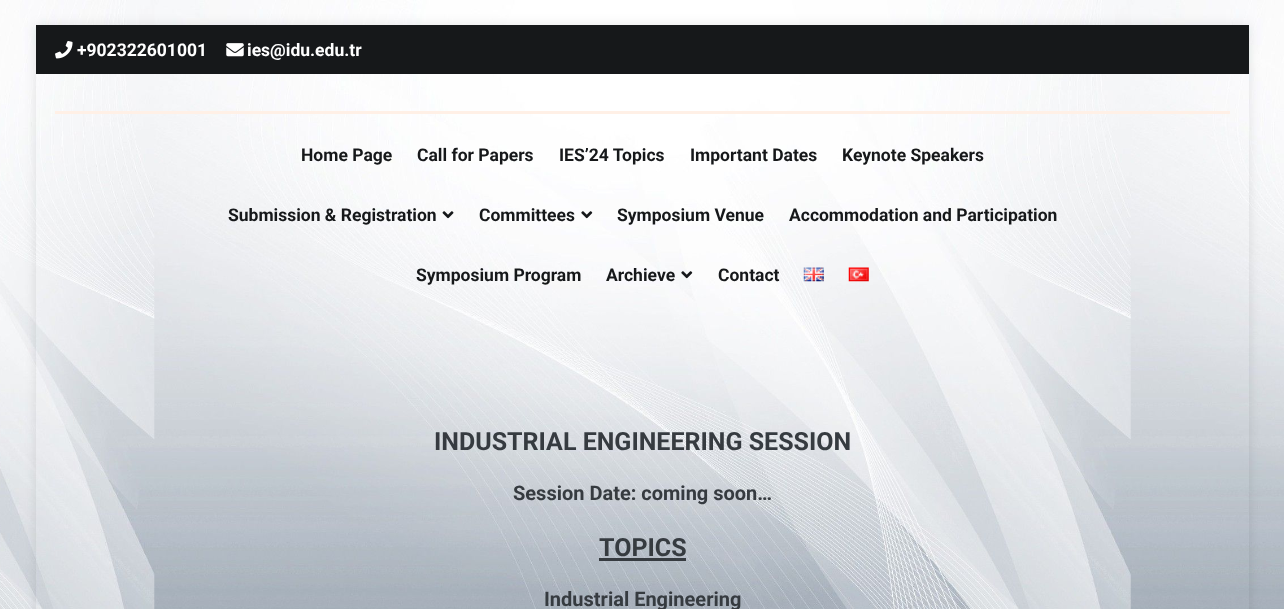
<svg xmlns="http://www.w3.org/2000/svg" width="1284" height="609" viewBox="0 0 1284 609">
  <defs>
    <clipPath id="clip1"><path d="M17 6H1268V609H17ZM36 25H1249V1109H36Z" clip-rule="evenodd"/></clipPath>
  </defs>
  <rect width="100%" height="100%" fill="rgb(255,255,255)"/>
  <image x="0" y="0" width="1284" height="609" href="pic1.png"/>
  <g clip-path="url(#clip1)">
    <rect x="36" y="25" width="1213" height="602" fill="rgba(0,0,0,0.1)" filter="blur(6px)"/>
  </g>
  <rect x="36" y="25" width="1213" height="49" fill="rgb(22,24,26)"/>
  <image x="55" y="41" width="18" height="18" href="pic2.png"/>
  <text x="77" y="56" font-family="Roboto" font-size="17.5" font-weight="bold" fill="rgb(255,255,255)">+902322601001</text>
  <image x="226" y="43" width="18" height="14" href="pic3.png"/>
  <text x="247" y="56" font-family="Roboto" font-size="17.5" font-weight="bold" fill="rgb(255,255,255)">ies@idu.edu.tr</text>
  <rect x="55" y="111" width="1175" height="3" fill="rgb(255,240,230)"/>
  <g font-family="Roboto" font-size="17.5" font-weight="bold" fill="rgb(22,24,26)">
    <text x="301" y="161">Home Page</text>
    <text x="417" y="161">Call for Papers</text>
    <text x="559" y="161">IES’24 Topics</text>
    <text x="690" y="161">Important Dates</text>
    <text x="842" y="161">Keynote Speakers</text>
    <text x="228" y="221">Submission &amp; Registration</text>
  </g>
  <image x="442" y="211" width="12" height="8" href="pic4.png"/>
  <text x="479" y="221" font-family="Roboto" font-size="17.5" font-weight="bold" fill="rgb(22,24,26)">Committees</text>
  <image x="581" y="211" width="12" height="8" href="pic5.png"/>
  <g font-family="Roboto" font-size="17.5" font-weight="bold" fill="rgb(22,24,26)">
    <text x="617" y="221">Symposium Venue</text>
    <text x="789" y="221">Accommodation and Participation</text>
    <text x="416" y="281">Symposium Program</text>
    <text x="606" y="281">Archieve</text>
  </g>
  <image x="681" y="271" width="12" height="8" href="pic6.png"/>
  <text x="718" y="281" font-family="Roboto" font-size="17.5" font-weight="bold" fill="rgb(22,24,26)">Contact</text>
  <image x="803" y="267" width="21" height="15" href="pic7.png"/>
  <image x="848" y="267" width="21" height="15" href="pic8.png"/>
  <text x="434" y="450" font-family="Roboto" font-size="25" font-weight="bold" fill="rgb(54,59,64)">INDUSTRIAL ENGINEERING SESSION</text>
  <text x="513" y="500" font-family="Roboto" font-size="20" font-weight="bold" fill="rgb(54,59,64)">Session Date: coming soon…</text>
  <text x="599" y="556" font-family="Roboto" font-size="25" font-weight="bold" fill="rgb(54,59,64)">TOPICS</text>
  <rect x="599" y="558" width="87" height="3" fill="rgb(54,59,64)"/>
  <text x="544" y="606" font-family="Roboto" font-size="20" font-weight="bold" fill="rgb(54,59,64)">Industrial Engineering</text>
</svg>
